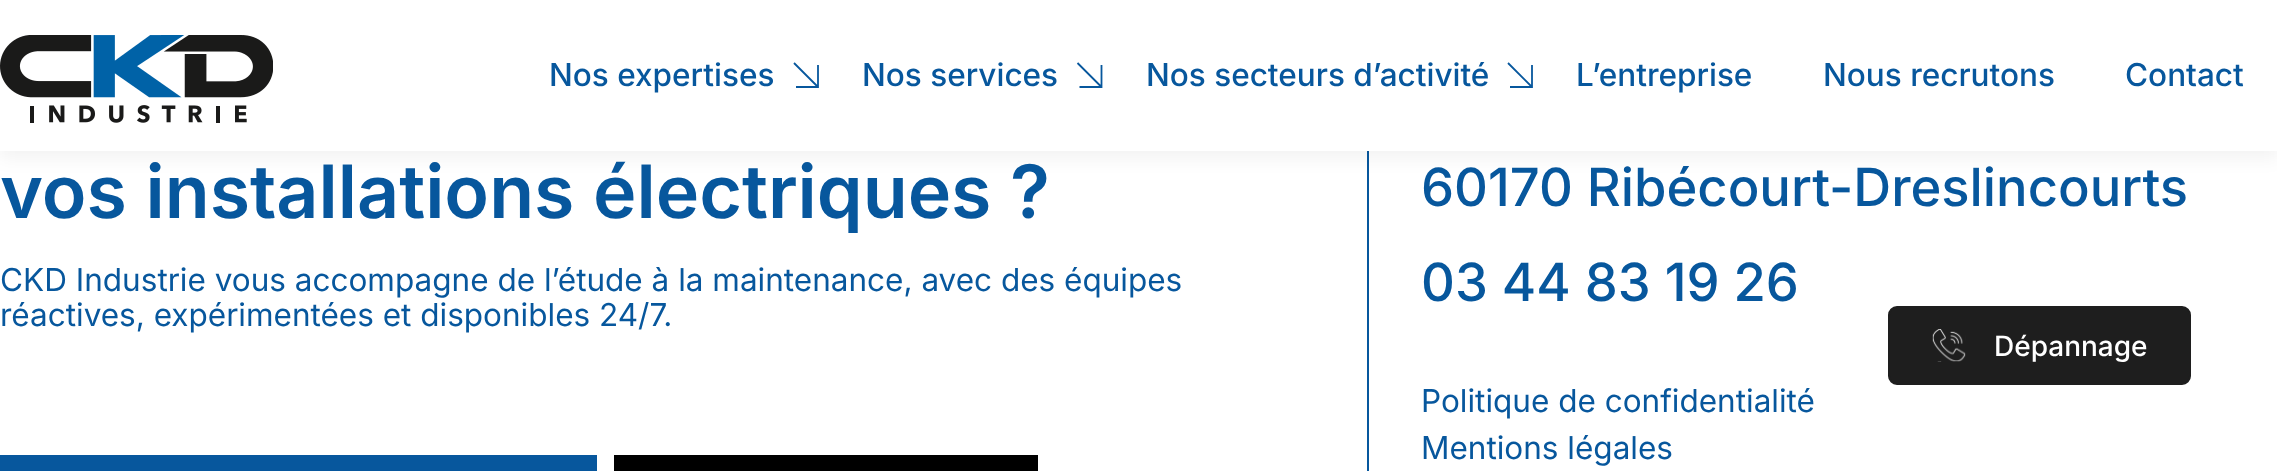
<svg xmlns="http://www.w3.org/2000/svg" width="2277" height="471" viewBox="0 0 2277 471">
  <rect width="100%" height="100%" fill="rgb(255,255,255)"/>
  <rect x="1367" y="151" width="2" height="320" fill="rgb(7,87,157)"/>
  <rect x="0" y="7" width="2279" height="151" fill="rgba(0,0,0,0.05)" filter="blur(9px)"/>
  <rect x="0" y="0" width="2277" height="151" fill="rgb(255,255,255)"/>
  <image x="0" y="35" width="273" height="88" href="pic1.png"/>
  <text x="549" y="86" font-family="Inter" font-size="31.5" font-weight="500" fill="rgb(7,87,157)">Nos expertises</text>
  <path d="M818 65V87H796M794 63L818 87" fill="none" stroke="rgb(7,87,157)" stroke-width="1.8"/>
  <text x="862" y="86" font-family="Inter" font-size="31.5" font-weight="500" fill="rgb(7,87,157)">Nos services</text>
  <path d="M1101.5 65V87H1079.5M1077.5 63L1101.5 87" fill="none" stroke="rgb(7,87,157)" stroke-width="1.8"/>
  <text x="1146" y="86" font-family="Inter" font-size="31.5" font-weight="500" fill="rgb(7,87,157)">Nos secteurs d’activité</text>
  <path d="M1532 65V87H1510M1508 63L1532 87" fill="none" stroke="rgb(7,87,157)" stroke-width="1.8"/>
  <g font-family="Inter" font-size="31.5" font-weight="500" fill="rgb(7,87,157)">
    <text x="1576" y="86">L’entreprise</text>
    <text x="1823" y="86">Nous recrutons</text>
    <text x="2125" y="86">Contact</text>
  </g>
  <rect x="1889" y="307" width="301" height="77" rx="8" fill="rgb(30,30,30)" stroke="rgb(30,30,30)" stroke-width="2"/>
  <image x="1932" y="329" width="34" height="33" href="pic2.png"/>
  <text x="1994" y="356" font-family="Inter" font-size="28" font-weight="500" fill="rgb(255,255,255)">Dépannage</text>
  <text x="0" y="218" font-family="Inter" font-size="73.5" font-weight="600" fill="rgb(7,87,157)">vos installations électriques ?</text>
  <g font-family="Inter" font-size="31.5" fill="rgb(7,87,157)">
    <text>
      <tspan x="0" y="291">CKD Industrie vous accompagne de l’étude à la maintenance, avec des équipes</tspan>
      <tspan x="0" y="326">réactives, expérimentées et disponibles 24/7.</tspan>
    </text>
  </g>
  <rect x="0" y="455" width="597" height="16" fill="rgb(7,87,157)"/>
  <rect x="614" y="455" width="424" height="16" fill="rgb(0,0,0)"/>
  <g font-family="Inter" font-size="52.5" font-weight="500" fill="rgb(7,87,157)">
    <text>
      <tspan x="1421" y="206">60170 Ribécourt-Dreslincourts</tspan>
      <tspan x="1421" y="301">03 44 83 19 26</tspan>
    </text>
  </g>
  <g font-family="Inter" font-size="31.5" fill="rgb(7,87,157)">
    <text>
      <tspan x="1421" y="412">Politique de confidentialité</tspan>
      <tspan x="1421" y="459">Mentions légales</tspan>
    </text>
  </g>
</svg>
